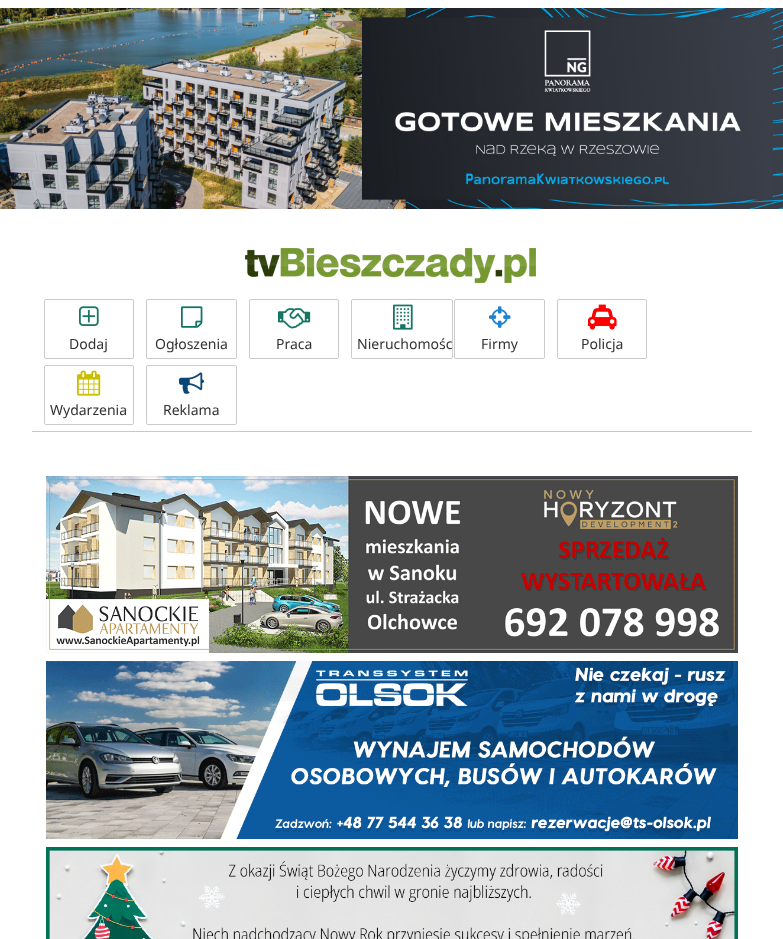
<svg xmlns="http://www.w3.org/2000/svg" width="783" height="939" viewBox="0 0 783 939">
  <rect width="100%" height="100%" fill="rgb(255,255,255)"/>
  <image x="0" y="8" width="783" height="201" href="pic1.png"/>
  <image x="245" y="248" width="291" height="35" href="pic2.png"/>
  <rect x="44.5" y="299.5" width="89" height="59" rx="1.5" fill="none" stroke="rgb(203,203,203)"/>
  <image x="79" y="306" width="20" height="20" href="pic3.png"/>
  <text x="69" y="349" font-family="Noto Sans" font-size="14" fill="rgb(51,51,51)">Dodaj</text>
  <rect x="146.5" y="299.5" width="90" height="59" rx="1.5" fill="none" stroke="rgb(203,203,203)"/>
  <image x="181" y="306" width="22" height="22" href="pic4.png"/>
  <text x="155" y="349" font-family="Noto Sans" font-size="14" fill="rgb(51,51,51)">Ogłoszenia</text>
  <rect x="249.5" y="299.5" width="89" height="59" rx="1.5" fill="none" stroke="rgb(203,203,203)"/>
  <image x="278" y="308" width="33" height="21" href="pic5.png"/>
  <text x="276" y="349" font-family="Noto Sans" font-size="14" fill="rgb(51,51,51)">Praca</text>
  <rect x="351.5" y="299.5" width="101" height="59" rx="1.5" fill="none" stroke="rgb(203,203,203)"/>
  <image x="393" y="304" width="20" height="26" href="pic6.png"/>
  <text x="357" y="349" font-family="Noto Sans" font-size="14" fill="rgb(51,51,51)">Nieruchomośc</text>
  <rect x="454.5" y="299.5" width="90" height="59" rx="1.5" fill="none" stroke="rgb(203,203,203)"/>
  <image x="489" y="306" width="22" height="22" href="pic7.png"/>
  <text x="481" y="349" font-family="Noto Sans" font-size="14" fill="rgb(51,51,51)">Firmy</text>
  <rect x="557.5" y="299.5" width="89" height="59" rx="1.5" fill="none" stroke="rgb(203,203,203)"/>
  <image x="588" y="304" width="29" height="26" href="pic8.png"/>
  <text x="581" y="349" font-family="Noto Sans" font-size="14" fill="rgb(51,51,51)">Policja</text>
  <rect x="44.5" y="365.5" width="89" height="59" rx="1.5" fill="none" stroke="rgb(203,203,203)"/>
  <image x="77" y="370" width="24" height="26" href="pic9.png"/>
  <text x="50" y="415" font-family="Noto Sans" font-size="14" fill="rgb(51,51,51)">Wydarzenia</text>
  <rect x="146.5" y="365.5" width="90" height="59" rx="1.5" fill="none" stroke="rgb(203,203,203)"/>
  <image x="179" y="372" width="25" height="22" href="pic10.png"/>
  <text x="163" y="415" font-family="Noto Sans" font-size="14" fill="rgb(51,51,51)">Reklama</text>
  <rect x="32" y="431" width="720" height="1" fill="rgb(200,201,202)"/>
  <image x="46" y="476" width="692" height="177" href="pic11.png"/>
  <image x="46" y="661" width="692" height="178" href="pic12.png"/>
  <image x="46" y="847" width="692" height="92" href="pic13.png"/>
</svg>
